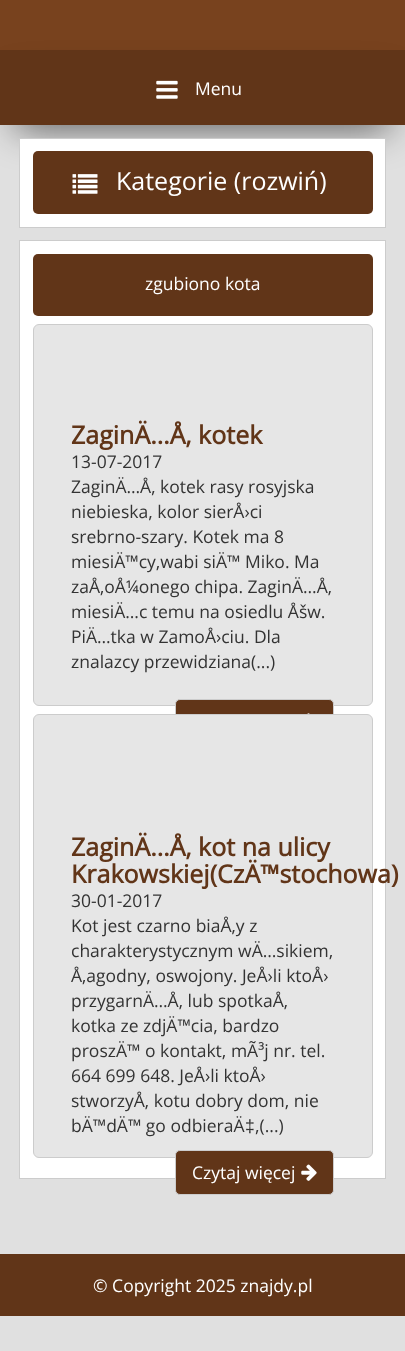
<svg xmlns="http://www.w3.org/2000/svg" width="405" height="1351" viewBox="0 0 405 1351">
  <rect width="100%" height="100%" fill="rgb(224,224,224)"/>
  <rect x="0" y="0" width="405" height="50" fill="rgb(120,66,30)"/>
  <rect x="16" y="85" width="373" height="43" fill="rgba(0,0,0,0.61)" filter="blur(19px)"/>
  <rect x="0" y="50" width="405" height="75" fill="rgb(97,53,24)"/>
  <image x="156" y="80" width="22" height="19" href="pic1.png"/>
  <text x="195" y="95" font-family="Open Sans" font-size="17.5" fill="rgb(255,255,255)">Menu</text>
  <rect x="19.5" y="138.5" width="366" height="89" fill="rgb(255,255,255)" stroke="rgb(204,204,204)"/>
  <rect x="33" y="151" width="340" height="63" rx="5" fill="rgb(97,53,24)"/>
  <image x="72" y="174" width="26" height="20" href="pic2.png"/>
  <text x="116" y="190" font-family="Open Sans" font-size="25" fill="rgb(255,255,255)">Kategorie (rozwiń)</text>
  <rect x="19.5" y="240.5" width="366" height="938" fill="rgb(255,255,255)" stroke="rgb(204,204,204)"/>
  <rect x="33" y="254" width="340" height="62" rx="5" fill="rgb(97,53,24)"/>
  <text x="145" y="290" font-family="Open Sans" font-size="17.5" fill="rgb(255,255,255)">zgubiono kota</text>
  <rect x="33.5" y="324.5" width="339" height="381" rx="5.5" fill="rgb(230,230,230)" stroke="rgb(204,204,204)"/>
  <text x="71" y="444" font-family="Open Sans" font-size="25" font-weight="bold" fill="rgb(97,53,24)">ZaginÄ…Å‚ kotek</text>
  <g font-family="Open Sans" font-size="17.5" fill="rgb(51,51,51)">
    <text>
      <tspan x="71" y="468">13-07-2017</tspan>
      <tspan x="71" y="493">ZaginÄ…Å‚ kotek rasy rosyjska</tspan>
      <tspan x="71" y="518">niebieska, kolor sierÅ›ci</tspan>
      <tspan x="71" y="543">srebrno-szary. Kotek ma 8</tspan>
      <tspan x="71" y="568">miesiÄ™cy,wabi siÄ™ Miko. Ma</tspan>
      <tspan x="71" y="593">zaÅ‚oÅ¼onego chipa. ZaginÄ…Å‚</tspan>
      <tspan x="71" y="618">miesiÄ…c temu na osiedlu Åšw.</tspan>
      <tspan x="71" y="643">PiÄ…tka w ZamoÅ›ciu. Dla</tspan>
      <tspan x="71" y="668">znalazcy przewidziana(...)</tspan>
    </text>
  </g>
  <rect x="175.5" y="699.5" width="158" height="43" rx="4.5" fill="rgb(97,53,24)" stroke="rgb(204,204,204)"/>
  <image x="307" y="713" width="3" height="1" href="pic3.png"/>
  <rect x="33.5" y="714.5" width="339" height="443" rx="5.5" fill="rgb(230,230,230)" stroke="rgb(204,204,204)"/>
  <g font-family="Open Sans" font-size="25" font-weight="bold" fill="rgb(97,53,24)">
    <text>
      <tspan x="71" y="856">ZaginÄ…Å‚ kot na ulicy</tspan>
      <tspan x="71" y="883">Krakowskiej(CzÄ™stochowa)</tspan>
    </text>
  </g>
  <g font-family="Open Sans" font-size="17.5" fill="rgb(51,51,51)">
    <text>
      <tspan x="71" y="907">30-01-2017</tspan>
      <tspan x="71" y="932">Kot jest czarno biaÅ‚y z</tspan>
      <tspan x="71" y="957">charakterystycznym wÄ…sikiem,</tspan>
      <tspan x="71" y="982">Å‚agodny, oswojony. JeÅ›li ktoÅ›</tspan>
      <tspan x="71" y="1007">przygarnÄ…Å‚ lub spotkaÅ‚</tspan>
      <tspan x="71" y="1032">kotka ze zdjÄ™cia, bardzo</tspan>
      <tspan x="71" y="1057">proszÄ™ o kontakt, mÃ³j nr. tel.</tspan>
      <tspan x="71" y="1082">664 699 648. JeÅ›li ktoÅ›</tspan>
      <tspan x="71" y="1107">stworzyÅ‚ kotu dobry dom, nie</tspan>
      <tspan x="71" y="1132">bÄ™dÄ™ go odbieraÄ</tspan>
    </text>
  </g>
  <text x="245" y="1132" font-family="Liberation Sans" font-size="17.5" fill="rgb(51,51,51)">‡</text>
  <text x="255" y="1132" font-family="Open Sans" font-size="17.5" fill="rgb(51,51,51)">,(...)</text>
  <rect x="175.5" y="1150.5" width="158" height="44" rx="4.5" fill="rgb(97,53,24)" stroke="rgb(204,204,204)"/>
  <text x="192" y="1179" font-family="Open Sans" font-size="17.5" fill="rgb(255,255,255)">Czytaj więcej</text>
  <image x="301" y="1164" width="16" height="17" href="pic4.png"/>
  <rect x="0" y="1254" width="405" height="62" fill="rgb(97,53,24)"/>
  <text x="93" y="1292" font-family="Open Sans" font-size="17.5" fill="rgb(255,255,255)">© Copyright 2025 znajdy.pl</text>
</svg>
